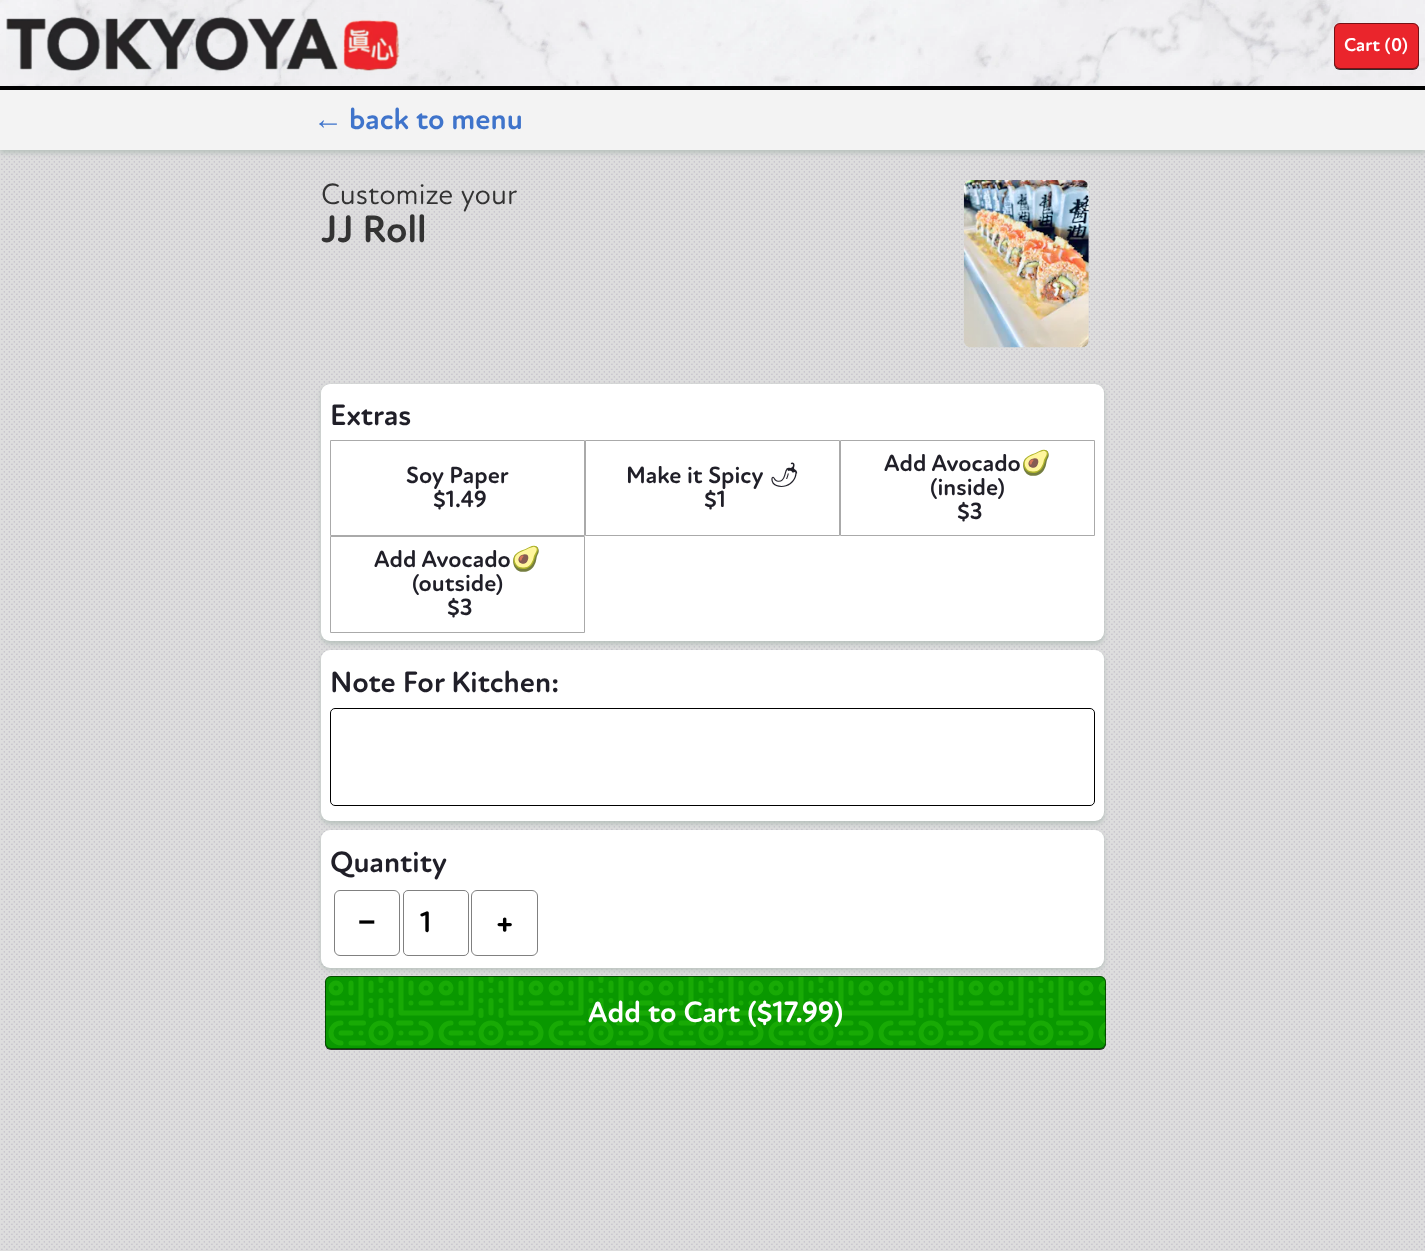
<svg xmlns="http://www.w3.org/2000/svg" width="1425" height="1251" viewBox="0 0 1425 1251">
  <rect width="100%" height="100%" fill="#ddd"/>
  <image x="1" y="151" width="1424" height="1099" href="img/3.png"/>
  <path d="M0 93h1425v60H0z" fill="#b7c1bc" filter="blur(2.5px)"/>
  <image x="0" y="0" width="1425" height="86" href="img/1.png"/>
  <path d="M0 86h1425v4H0z" fill="#000"/>
  <image x="6" y="10" width="394" height="65" href="img/2.png"/>
  <rect x="1334" y="24" width="85" height="46" rx="6" fill="#000000cc" filter="blur(0.5px)"/>
  <rect x="1334" y="23" width="85" height="46" rx="6" fill="#ea252c"/>
  <rect x="1334.5" y="23.5" width="84" height="45" rx="5.5" fill="none" stroke="#00000080"/>
  <path d="M0 90h1425v60H0z" fill="#f3f3f3"/>
  <image x="963" y="180" width="126" height="168" href="img/4.png"/>
  <rect x="321" y="386" width="783" height="258" rx="9" fill="#b7c1bc" filter="blur(2.5px)"/>
  <rect x="321" y="384" width="783" height="257" rx="9" fill="#fff"/>
  <path d="M330.5 440.5h254v95H330.5z" fill="none" stroke="#aaa"/>
  <path d="M585.5 440.5h254v95H585.5z" fill="none" stroke="#aaa"/>
  <path d="M840.5 440.5h254v95H840.5z" fill="none" stroke="#aaa"/>
  <path d="M330.5 536.5h254v96H330.5z" fill="none" stroke="#aaa"/>
  <rect x="321" y="653" width="783" height="171" rx="9" fill="#b7c1bc" filter="blur(2.5px)"/>
  <rect x="321" y="650" width="783" height="171" rx="9" fill="#fff"/>
  <rect x="330.5" y="708.5" width="764" height="97" rx="4.5" fill="none" stroke="#000"/>
  <rect x="321" y="833" width="783" height="137" rx="9" fill="#b7c1bc" filter="blur(2.5px)"/>
  <rect x="321" y="830" width="783" height="138" rx="9" fill="#fff"/>
  <rect x="334.5" y="890.5" width="65" height="65" rx="5.5" fill="none" stroke="#808080"/>
  <rect x="403.5" y="890.5" width="65" height="65" rx="4.5" fill="none" stroke="#808080"/>
  <rect x="471.5" y="890.5" width="66" height="65" rx="5.5" fill="none" stroke="#808080"/>
  <rect x="325" y="978" width="781" height="72" rx="6" fill="#000000cc" filter="blur(0.5px)"/>
  <rect x="325" y="976" width="781" height="73" rx="6" fill="#099800"/>
  <image x="325" y="976" width="782" height="73" href="img/5.png"/>
  <rect x="325.5" y="976.5" width="780" height="72" rx="5.5" fill="none" stroke="#00000080"/>
  <g font-family="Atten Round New" font-size="19" font-weight="bold" fill="#fff">
    <text x="1344" y="51">Cart (</text>
    <text x="1391" y="51">0</text>
    <text x="1402" y="51">)</text>
  </g>
  <text x="313" y="129" font-family="Liberation Sans" font-size="30" font-weight="bold" fill="#3f74cb">←</text>
  <text x="349" y="129" font-family="Atten Round New" font-size="30" font-weight="bold" fill="#3f74cb">back to menu</text>
  <text x="321" y="204" font-family="Atten Round New" font-size="30" fill="#333">Customize your</text>
  <text x="321" y="242" font-family="Atten Round New" font-size="39" font-weight="bold" fill="#333">JJ Roll</text>
  <text x="330" y="425" font-family="Atten Round New" font-size="30" font-weight="bold" fill="#201f28">Extras</text>
  <g font-family="Atten Round New" font-size="24" font-weight="bold" fill="#201f28">
    <text x="406" y="483">Soy Paper</text>
    <text x="433" y="507">$1.49</text>
    <text x="626" y="483">Make it Spicy</text>
  </g>
  <text x="769" y="483" font-family="Noto Emoji" font-size="24" font-weight="600" fill="#201f28">🌶</text>
  <g font-family="Atten Round New" font-size="24" font-weight="bold" fill="#201f28">
    <text x="704" y="507">$1</text>
    <text x="884" y="471">Add Avocado</text>
  </g>
  <text x="1021" y="471" font-family="Noto Color Emoji" font-size="24" font-weight="bold" fill="#201f28">🥑</text>
  <g font-family="Atten Round New" font-size="24" font-weight="bold" fill="#201f28">
    <text x="930" y="495">(inside)</text>
    <text x="957" y="519">$3</text>
    <text x="374" y="567">Add Avocado</text>
  </g>
  <text x="511" y="567" font-family="Noto Color Emoji" font-size="24" font-weight="bold" fill="#201f28">🥑</text>
  <g font-family="Atten Round New" font-size="24" font-weight="bold" fill="#201f28">
    <text x="412" y="591">(outside)</text>
    <text x="447" y="615">$3</text>
  </g>
  <g font-family="Atten Round New" font-size="30" font-weight="bold" fill="#201f28">
    <text x="330" y="692">Note For Kitchen:</text>
    <text x="330" y="872">Quantity</text>
  </g>
  <text x="358" y="932" font-family="Liberation Sans" font-size="30" font-weight="bold" fill="#000">−</text>
  <g font-family="Atten Round New" font-size="30" font-weight="bold" fill="#000">
    <text x="420" y="932">1</text>
    <text x="496" y="932">+</text>
  </g>
  <text x="588" y="1022" font-family="Atten Round New" font-size="30" font-weight="bold" fill="#fff">Add to Cart ($17.99)</text>
</svg>
